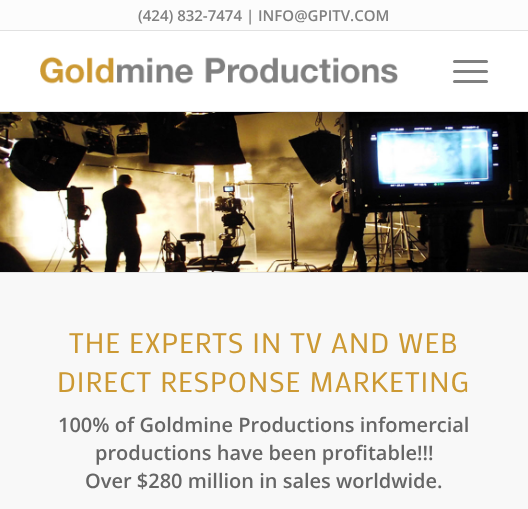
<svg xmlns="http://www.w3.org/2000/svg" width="528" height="509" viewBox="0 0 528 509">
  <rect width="100%" height="100%" fill="#f8f8f8"/>
  <path d="M0 0h528v30H0z" fill="#fcfcfc"/>
  <path d="M0 30h528v1H0z" fill="#e1e1e1"/>
  <path d="M0 31h528v80H0z" fill="#fff"/>
  <path d="M0 111h528v1H0z" fill="#e1e1e1"/>
  <image x="40" y="56" width="358" height="28" href="img/1.png"/>
  <rect x="453" y="70" width="35" height="3" rx="1.5" fill="#808080"/>
  <rect x="453" y="60" width="35" height="3" rx="1.5" fill="#808080"/>
  <rect x="453" y="80" width="35" height="3" rx="1.5" fill="#808080"/>
  <image x="0" y="112" width="528" height="160" href="img/2.png"/>
  <path d="M0 272h528v1H0z" fill="#e1e1e1"/>
  <text x="138" y="21" font-family="Open Sans" font-size="15" font-weight="600" fill="#808080">(424) 832-7474 | INFO@GPITV.COM</text>
  <g font-family="Mako" font-size="28" letter-spacing="1" fill="#c93">
    <text x="69" y="353">THE EXPERTS IN TV AND WEB</text>
    <text x="57" y="392">DIRECT RESPONSE MARKETING</text>
  </g>
  <g font-family="Open Sans" font-size="20" font-weight="600" fill="#666">
    <text x="58" y="432">100% of Goldmine Productions infomercial</text>
    <text x="95" y="460">productions have been profitable!!!</text>
    <text x="85" y="488">Over $280 million in sales worldwide.</text>
  </g>
</svg>
